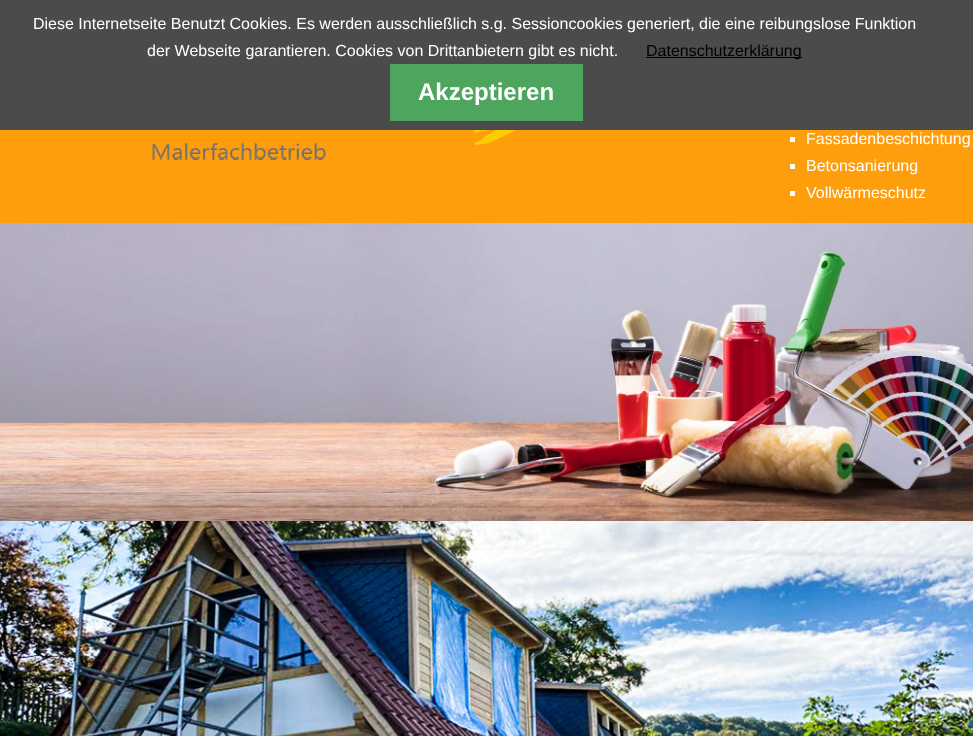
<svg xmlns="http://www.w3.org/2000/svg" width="973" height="736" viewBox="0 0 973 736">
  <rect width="100%" height="100%" fill="#ff9e0d"/>
  <path d="M0 0h973v130H0z" fill="#4b4b4b"/>
  <path d="M646 57h156v1H646z" fill="#000"/>
  <path d="M390 64h193v57H390z" fill="#4ea55e"/>
  <image x="152" y="130" width="363" height="30" href="img/1.png"/>
  <path d="M790 137h5v5H790z" fill="#fff"/>
  <path d="M790 164h5v5H790z" fill="#fff"/>
  <path d="M790 191h5v5H790z" fill="#fff"/>
  <image x="0" y="223" width="973" height="298" href="img/2.png"/>
  <image x="0" y="521" width="973" height="215" href="img/3.png"/>
  <g font-family="Liberation Sans" font-size="16" fill="#fff">
    <text x="33" y="29">Diese Internetseite Benutzt Cookies. Es werden ausschließlich s.g. Sessioncookies generiert, die eine reibungslose Funktion</text>
    <text x="147" y="56">der Webseite garantieren. Cookies von Drittanbietern gibt es nicht.</text>
  </g>
  <text x="646" y="56" font-family="Liberation Sans" font-size="16" fill="#000">Datenschutzerklärung</text>
  <text x="418" y="100" font-family="Liberation Sans" font-size="24" font-weight="bold" fill="#fff">Akzeptieren</text>
  <g font-family="Liberation Sans" font-size="16" fill="#fff">
    <text x="806" y="144">Fassadenbeschichtung</text>
    <text x="806" y="171">Betonsanierung</text>
    <text x="806" y="198">Vollwärmeschutz</text>
  </g>
</svg>
